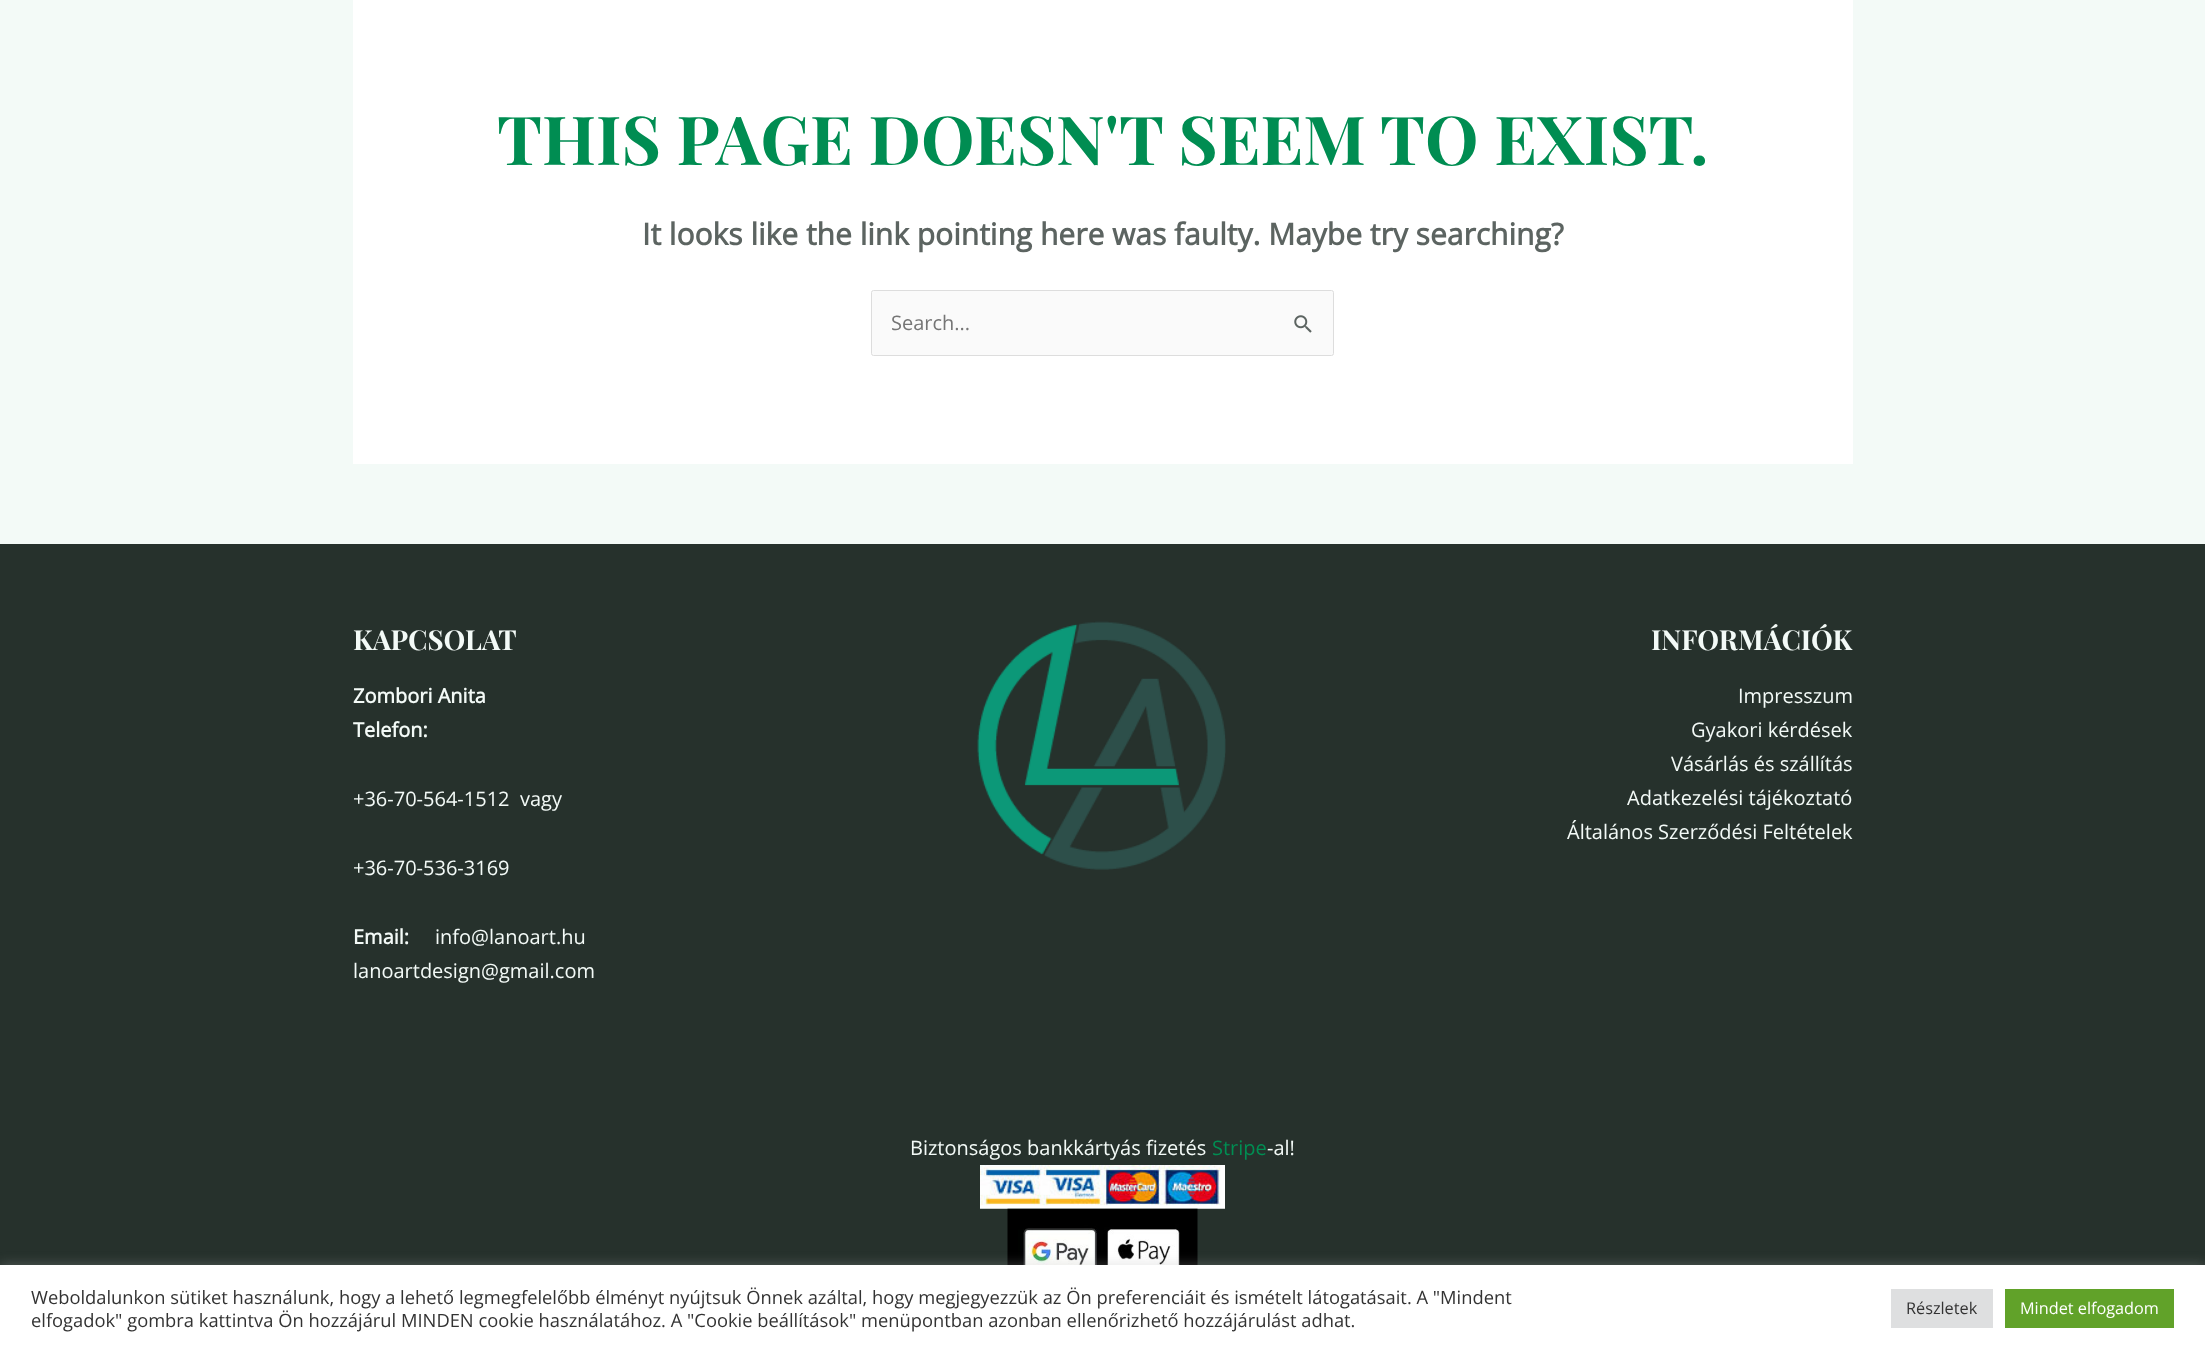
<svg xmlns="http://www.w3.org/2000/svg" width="2205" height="1351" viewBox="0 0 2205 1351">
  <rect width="100%" height="100%" fill="#f3faf7"/>
  <path d="M353 0h1500v464H353z" fill="#fff"/>
  <rect x="871.5" y="290.5" width="462" height="65" rx="2" fill="#fafafa" stroke="#ddd"/>
  <image x="1294" y="315" width="18" height="18" href="img/1.png"/>
  <path d="M0 544h2205v721H0z" fill="#26312c"/>
  <image x="977" y="621" width="249" height="249" href="img/2.png"/>
  <image x="980" y="1165" width="245" height="44" href="img/3.png"/>
  <image x="1007" y="1208" width="191" height="57" href="img/4.png"/>
  <path d="M0 1264h2205v86H0z" fill="#acabab4d" filter="blur(6px)"/>
  <path d="M0 1265h2205v86H0z" fill="#fff"/>
  <path d="M1891 1289h102v39H1891z" fill="#dedfe0"/>
  <path d="M2005 1289h169v39H2005z" fill="#61a229"/>
  <text x="497" y="165" font-family="Playfair Display" font-size="67.5" font-weight="bold" fill="#008d52">THIS PAGE DOESN'T SEEM TO EXIST.</text>
  <text x="642" y="245" font-family="Open Sans" font-size="30" font-weight="bold" fill="#5c6461">It looks like the link pointing here was faulty. Maybe try searching?</text>
  <text x="891" y="330" font-family="Open Sans" font-size="20" fill="#757575">Search...</text>
  <text x="353" y="650" font-family="Playfair Display" font-size="27.5" font-weight="bold" fill="#f3faf7">KAPCSOLAT</text>
  <g font-family="Open Sans" font-size="20" font-weight="bold" fill="#f3faf7">
    <text x="353" y="703">Zombori Anita</text>
    <text x="353" y="737">Telefon:</text>
  </g>
  <g font-family="Open Sans" font-size="20" fill="#f3faf7">
    <text x="353" y="806" xml:space="preserve">+36-70-564-1512  vagy</text>
    <text x="353" y="875">+36-70-536-3169</text>
  </g>
  <text x="353" y="944" font-family="Open Sans" font-size="20" font-weight="bold" fill="#f3faf7">Email:</text>
  <g font-family="Open Sans" font-size="20" fill="#f3faf7">
    <text x="435" y="944">info@lanoart.hu</text>
    <text x="353" y="978">lanoartdesign@gmail.com</text>
  </g>
  <text x="1651" y="650" font-family="Playfair Display" font-size="27.5" font-weight="bold" fill="#f3faf7">INFORMÁCIÓK</text>
  <g font-family="Open Sans" font-size="20" fill="#f3faf7">
    <text x="1738" y="703">Impresszum</text>
    <text x="1691" y="737">Gyakori kérdések</text>
    <text x="1671" y="771">Vásárlás és szállítás</text>
    <text x="1627" y="805">Adatkezelési tájékoztató</text>
    <text x="1567" y="839">Általános Szerződési Feltételek</text>
    <text x="910" y="1155">Biztonságos bankkártyás fizetés</text>
  </g>
  <text x="1212" y="1155" font-family="Open Sans" font-size="20" fill="#008d52">Stripe</text>
  <text x="1267" y="1155" font-family="Open Sans" font-size="20" fill="#f3faf7">-al!</text>
  <g font-family="Open Sans" font-size="18.33" fill="#333">
    <text x="31" y="1304">Weboldalunkon sütiket használunk, hogy a lehető legmegfelelőbb élményt nyújtsuk Önnek azáltal, hogy megjegyezzük az Ön preferenciáit és ismételt látogatásait. A "Mindent</text>
    <text x="31" y="1327">elfogadok" gombra kattintva Ön hozzájárul MINDEN cookie használatához. A "Cookie beállítások" menüpontban azonban ellenőrizhető hozzájárulást adhat.</text>
  </g>
  <text x="1906" y="1314" font-family="Open Sans" font-size="16.25" fill="#333">Részletek</text>
  <text x="2020" y="1314" font-family="Open Sans" font-size="16.25" fill="#fff">Mindet elfogadom</text>
</svg>
